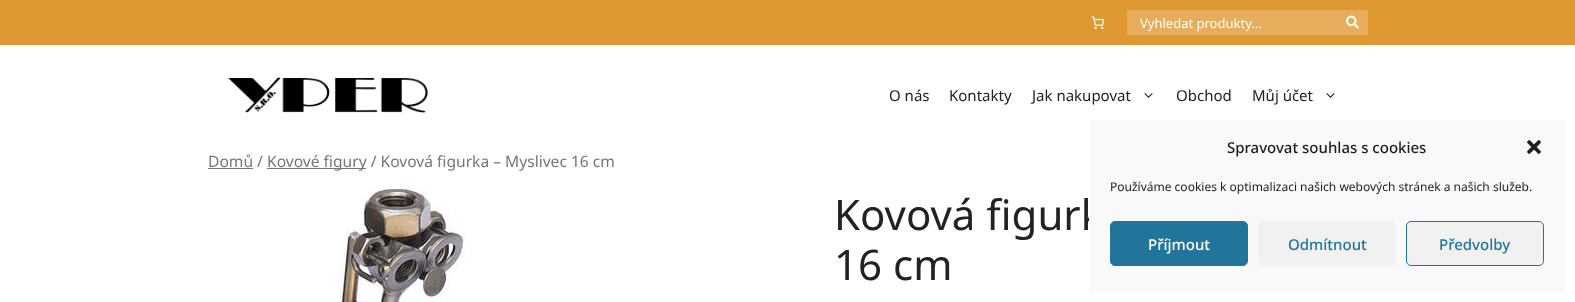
<svg xmlns="http://www.w3.org/2000/svg" width="1575" height="302" viewBox="0 0 1575 302">
  <rect width="100%" height="100%" fill="#fff"/>
  <path d="M0 0h1575v45H0z" fill="#de9933"/>
  <image x="1091" y="16" width="13" height="14" href="img/1.png"/>
  <path d="M1127 10h241v25H1127z" fill="#e5ad5c"/>
  <image x="1346" y="15" width="13" height="14" href="img/2.png"/>
  <image x="228" y="77" width="200" height="36" href="img/3.png"/>
  <image x="1144" y="93" width="9" height="5" href="img/4.png"/>
  <image x="1326" y="93" width="9" height="5" href="img/4.png"/>
  <path d="M208 168h45v1H208z" fill="#767676"/>
  <path d="M267 168h99v1H267z" fill="#767676"/>
  <image x="339" y="189" width="128" height="113" href="img/5.png"/>
  <text x="1140" y="28" font-family="Noto Sans" font-size="13" fill="#fff">Vyhledat produkty...</text>
  <g font-family="Noto Sans" font-size="15" fill="#222">
    <text x="889" y="101">O nás</text>
    <text x="949" y="101">Kontakty</text>
    <text x="1032" y="101">Jak nakupovat</text>
    <text x="1176" y="101">Obchod</text>
    <text x="1252" y="101">Můj účet</text>
  </g>
  <g font-family="Noto Sans" font-size="15.6" fill="#767676">
    <text x="208" y="167">Domů /</text>
    <text x="267" y="167">Kovové figury / Kovová figurka – Myslivec 16 cm</text>
  </g>
  <g font-family="Noto Sans" font-size="42" fill="#222">
    <text x="834" y="230">Kovová figurk</text>
    <text x="834" y="280">16 cm</text>
  </g>
  <path d="M1089 120h476v172H1089z" fill="#f9f9f9"/>
  <text x="1227" y="153" font-family="Noto Sans" font-size="15" font-weight="500" fill="#191e23">Spravovat souhlas s cookies</text>
  <image x="1527" y="140" width="14" height="14" href="img/6.png"/>
  <text x="1110" y="191" font-family="Noto Sans" font-size="12" fill="#191e23">Používáme cookies k optimalizaci našich webových stránek a našich služeb.</text>
  <rect x="1110.5" y="221.5" width="137" height="44" rx="4.5" fill="#21759b" stroke="#21759b"/>
  <text x="1148" y="250" font-family="Noto Sans" font-size="15" font-weight="500" fill="#fff">Příjmout</text>
  <rect x="1258" y="221" width="138" height="45" rx="5" fill="#f1f1f1"/>
  <text x="1288" y="250" font-family="Noto Sans" font-size="15" font-weight="500" fill="#21759b">Odmítnout</text>
  <rect x="1406.5" y="221.5" width="137" height="44" rx="4.5" fill="#f1f1f1" stroke="#21759b"/>
  <text x="1439" y="250" font-family="Noto Sans" font-size="15" font-weight="500" fill="#21759b">Předvolby</text>
</svg>
